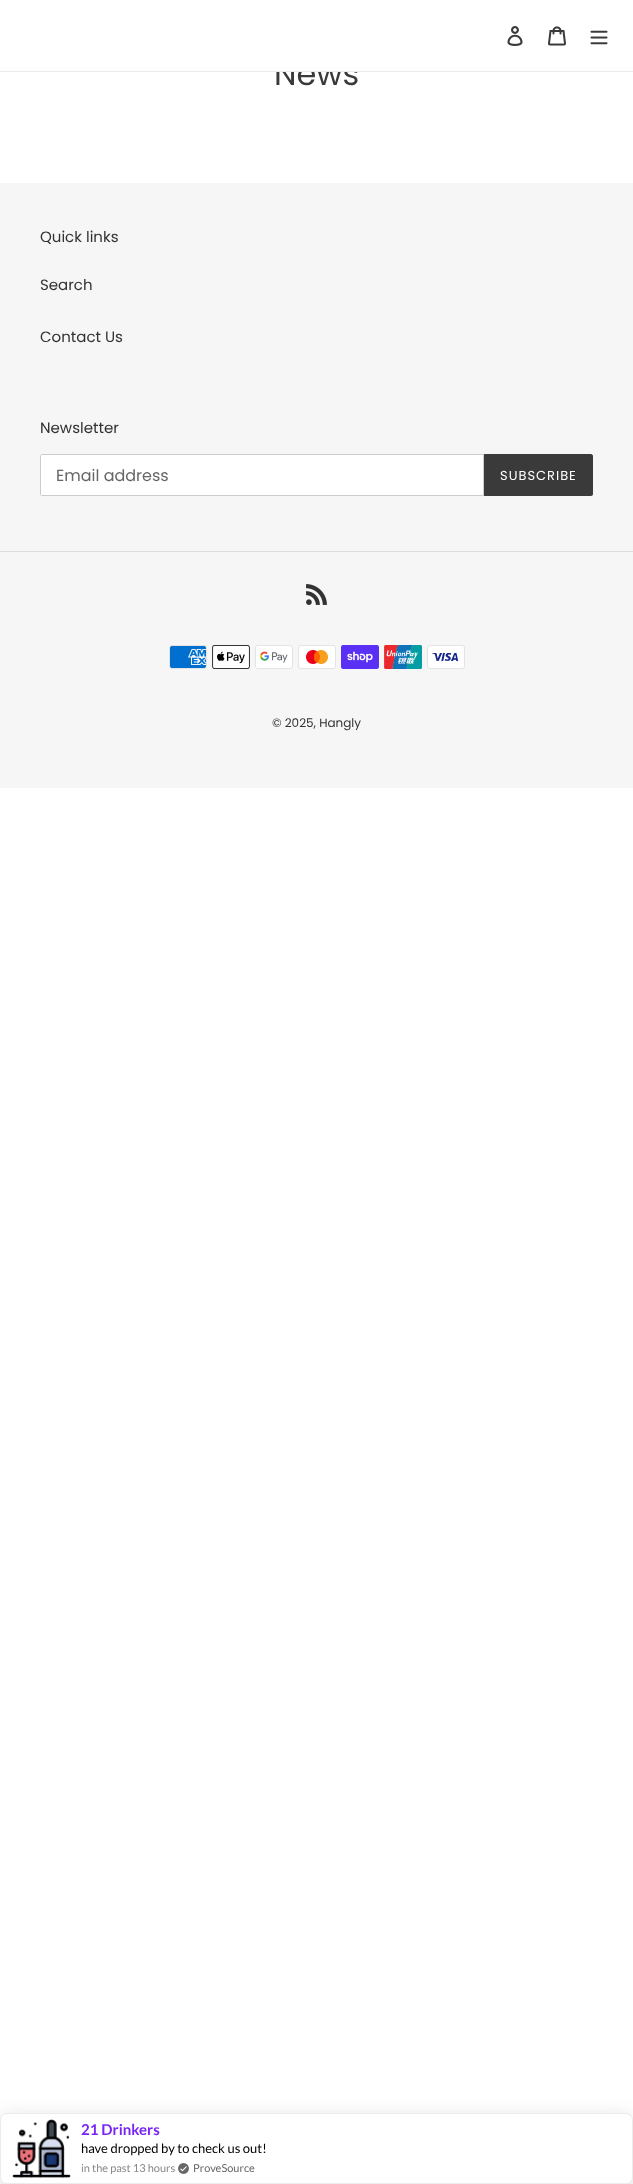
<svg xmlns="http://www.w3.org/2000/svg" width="633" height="2184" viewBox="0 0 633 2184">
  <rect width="100%" height="100%" fill="#fff"/>
  <image x="507" y="26" width="16" height="20" href="img/1.png"/>
  <image x="548" y="26" width="18" height="20" href="img/2.png"/>
  <image x="590" y="30" width="18" height="15" href="img/3.png"/>
  <path d="M0 183h633v605H0z" fill="#f6f6f6"/>
  <path d="M42 454.5H483.5V495.5H42C41 495.5 40.5 495 40.5 494V456C40.5 455 41 454.5 42 454.5Z" fill="#fff" stroke="#ccc"/>
  <path d="M484 454H591C592 454 593 455 593 456V494C593 495 592 496 591 496H484Z" fill="#3a3a3a"/>
  <path d="M0 551h633v1H0z" fill="#ddd"/>
  <image x="306" y="584" width="21" height="21" href="img/4.png"/>
  <image x="169" y="645" width="38" height="24" href="img/5.png"/>
  <image x="212" y="645" width="38" height="24" href="img/6.png"/>
  <image x="255" y="645" width="38" height="24" href="img/7.png"/>
  <image x="298" y="645" width="38" height="24" href="img/8.png"/>
  <image x="341" y="645" width="38" height="24" href="img/9.png"/>
  <image x="384" y="645" width="38" height="24" href="img/10.png"/>
  <image x="427" y="645" width="38" height="24" href="img/11.png"/>
  <rect y="2118" width="633" height="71" rx="7" fill="#00000026" filter="blur(10px)"/>
  <rect x="0.5" y="2113.5" width="632" height="70" rx="6.5" fill="#fff" stroke="#ececec"/>
  <image x="12" y="2119" width="59" height="59" href="img/12.png"/>
  <image x="178" y="2163" width="11" height="11" href="img/13.png"/>
  <text x="274" y="85" font-family="Poppins" font-size="32" fill="#3a3a3a">News</text>
  <path d="M0 71h633v1H0z" fill="#ebebeb"/>
  <path d="M276 62h81v9H276z" fill="#fff"/>
  <g font-family="Poppins" font-size="15" fill="#333232">
    <text x="40" y="242">Quick links</text>
    <text x="40" y="290">Search</text>
    <text x="40" y="342">Contact Us</text>
    <text x="40" y="433">Newsletter</text>
  </g>
  <text x="56" y="481" font-family="Poppins" font-size="16" fill="#666">Email address</text>
  <text x="500" y="480" font-family="Poppins" font-size="13" letter-spacing="1" fill="#fff">SUBSCRIBE</text>
  <text x="272" y="727" font-family="Poppins" font-size="12" fill="#333232">© 2025, Hangly</text>
  <text x="81" y="2135" font-family="Lato" font-size="15" font-weight="bold" fill="#7825f3">21 Drinkers</text>
  <text x="81" y="2153" font-family="Lato" font-size="13" fill="#000">have dropped by to check us out!</text>
  <text x="81" y="2172" font-family="Lato" font-size="11" fill="#888">in the past 13 hours</text>
  <text x="193" y="2172" font-family="Lato" font-size="11" fill="#666">ProveSource</text>
</svg>
